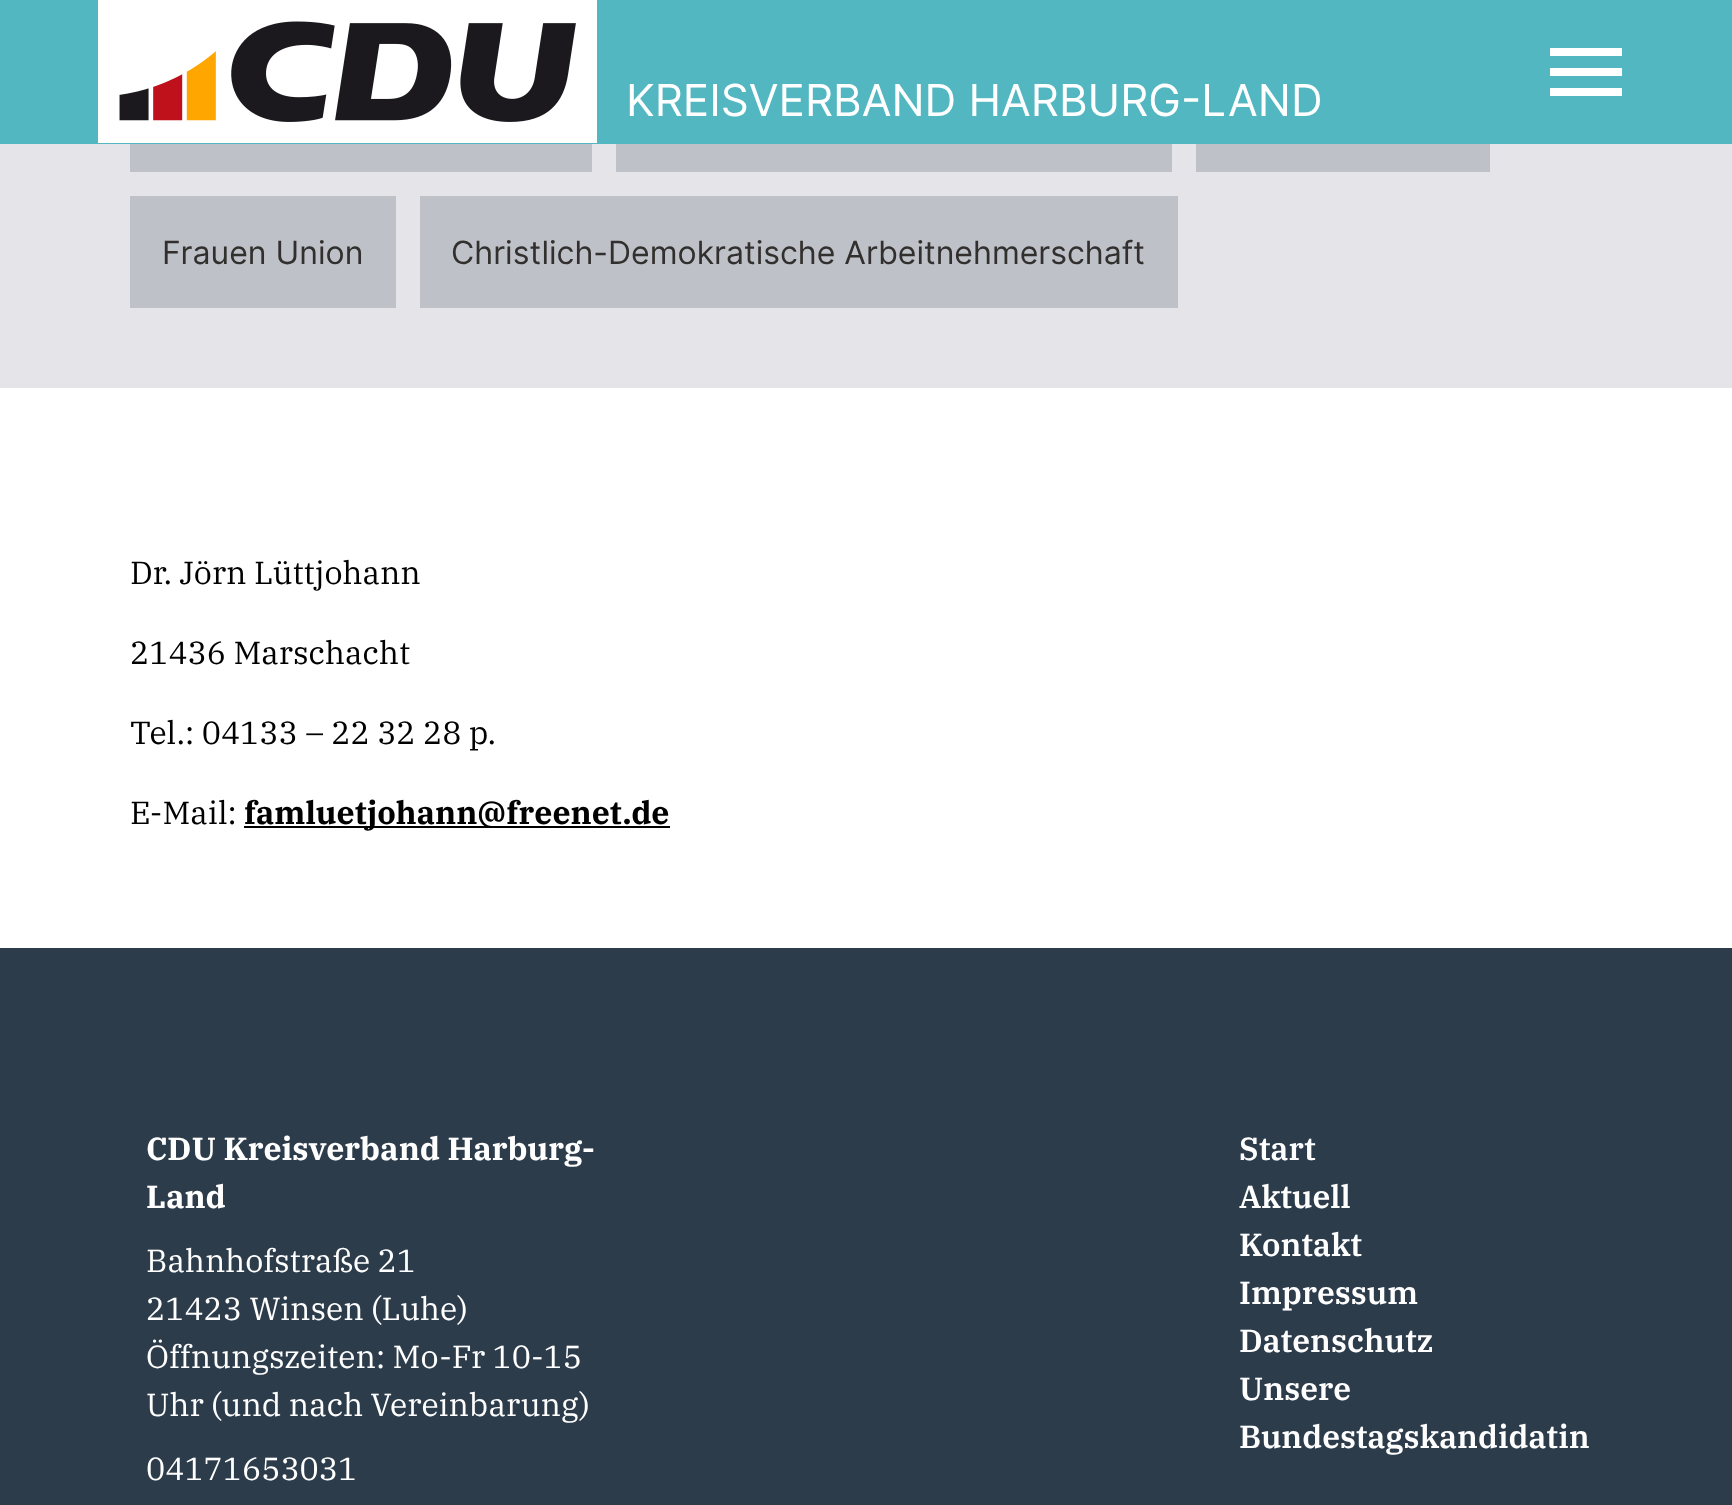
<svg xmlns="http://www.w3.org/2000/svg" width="1732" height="1505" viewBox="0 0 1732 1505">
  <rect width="100%" height="100%" fill="#fff"/>
  <path d="M0 0h1732v144H0z" fill="#52b7c1"/>
  <path d="M1622 96H1550V88H1622ZM1622 76H1550V68H1622ZM1622 56H1550V48H1622Z" fill="#fff"/>
  <image x="98" y="0" width="499" height="143" href="img/1.png"/>
  <path d="M0 144h1732v244H0z" fill="#e5e5e9"/>
  <path d="M130 144h462v28H130z" fill="#bfc1c8"/>
  <path d="M616 144h556v28H616z" fill="#bfc1c8"/>
  <path d="M1196 144h294v28H1196z" fill="#bfc1c8"/>
  <path d="M130 196h266v112H130z" fill="#bfc1c8"/>
  <path d="M420 196h758v112H420z" fill="#bfc1c8"/>
  <path d="M244 826h426v2H244z" fill="#000"/>
  <path d="M0 948h1732v557H0z" fill="#2d3c4b"/>
  <text x="626" y="116" font-family="Inter" font-size="44" fill="#fff">KREISVERBAND HARBURG-LAND</text>
  <g font-family="Inter" font-size="32" fill="#32302e">
    <text x="162" y="264">Frauen Union</text>
    <text x="451" y="264">Christlich-Demokratische Arbeitnehmerschaft</text>
  </g>
  <g font-family="IBM Plex Serif" font-size="32" fill="#000">
    <text x="130" y="584">Dr. Jörn Lüttjohann</text>
    <text x="130" y="664">21436 Marschacht</text>
    <text x="130" y="744">Tel.: 04133 – 22 32 28 p.</text>
    <text x="130" y="824">E-Mail:</text>
  </g>
  <text x="244" y="824" font-family="IBM Plex Serif" font-size="32" font-weight="bold" fill="#000">famluetjohann@freenet.de</text>
  <g font-family="IBM Plex Serif" font-size="32" font-weight="bold" fill="#fff">
    <text x="146" y="1160">CDU Kreisverband Harburg-</text>
    <text x="146" y="1208">Land</text>
  </g>
  <g font-family="IBM Plex Serif" font-size="32" fill="#fff">
    <text x="146" y="1272">Bahnhofstraße 21</text>
    <text x="146" y="1320">21423 Winsen (Luhe)</text>
    <text x="146" y="1368">Öffnungszeiten: Mo-Fr 10-15</text>
    <text x="146" y="1416">Uhr (und nach Vereinbarung)</text>
    <text x="146" y="1480">04171653031</text>
  </g>
  <g font-family="IBM Plex Serif" font-size="32" font-weight="600" fill="#fff">
    <text x="1239" y="1160">Start</text>
    <text x="1239" y="1208">Aktuell</text>
    <text x="1239" y="1256">Kontakt</text>
    <text x="1239" y="1304">Impressum</text>
    <text x="1239" y="1352">Datenschutz</text>
    <text x="1239" y="1400">Unsere</text>
    <text x="1239" y="1448">Bundestagskandidatin</text>
  </g>
</svg>
